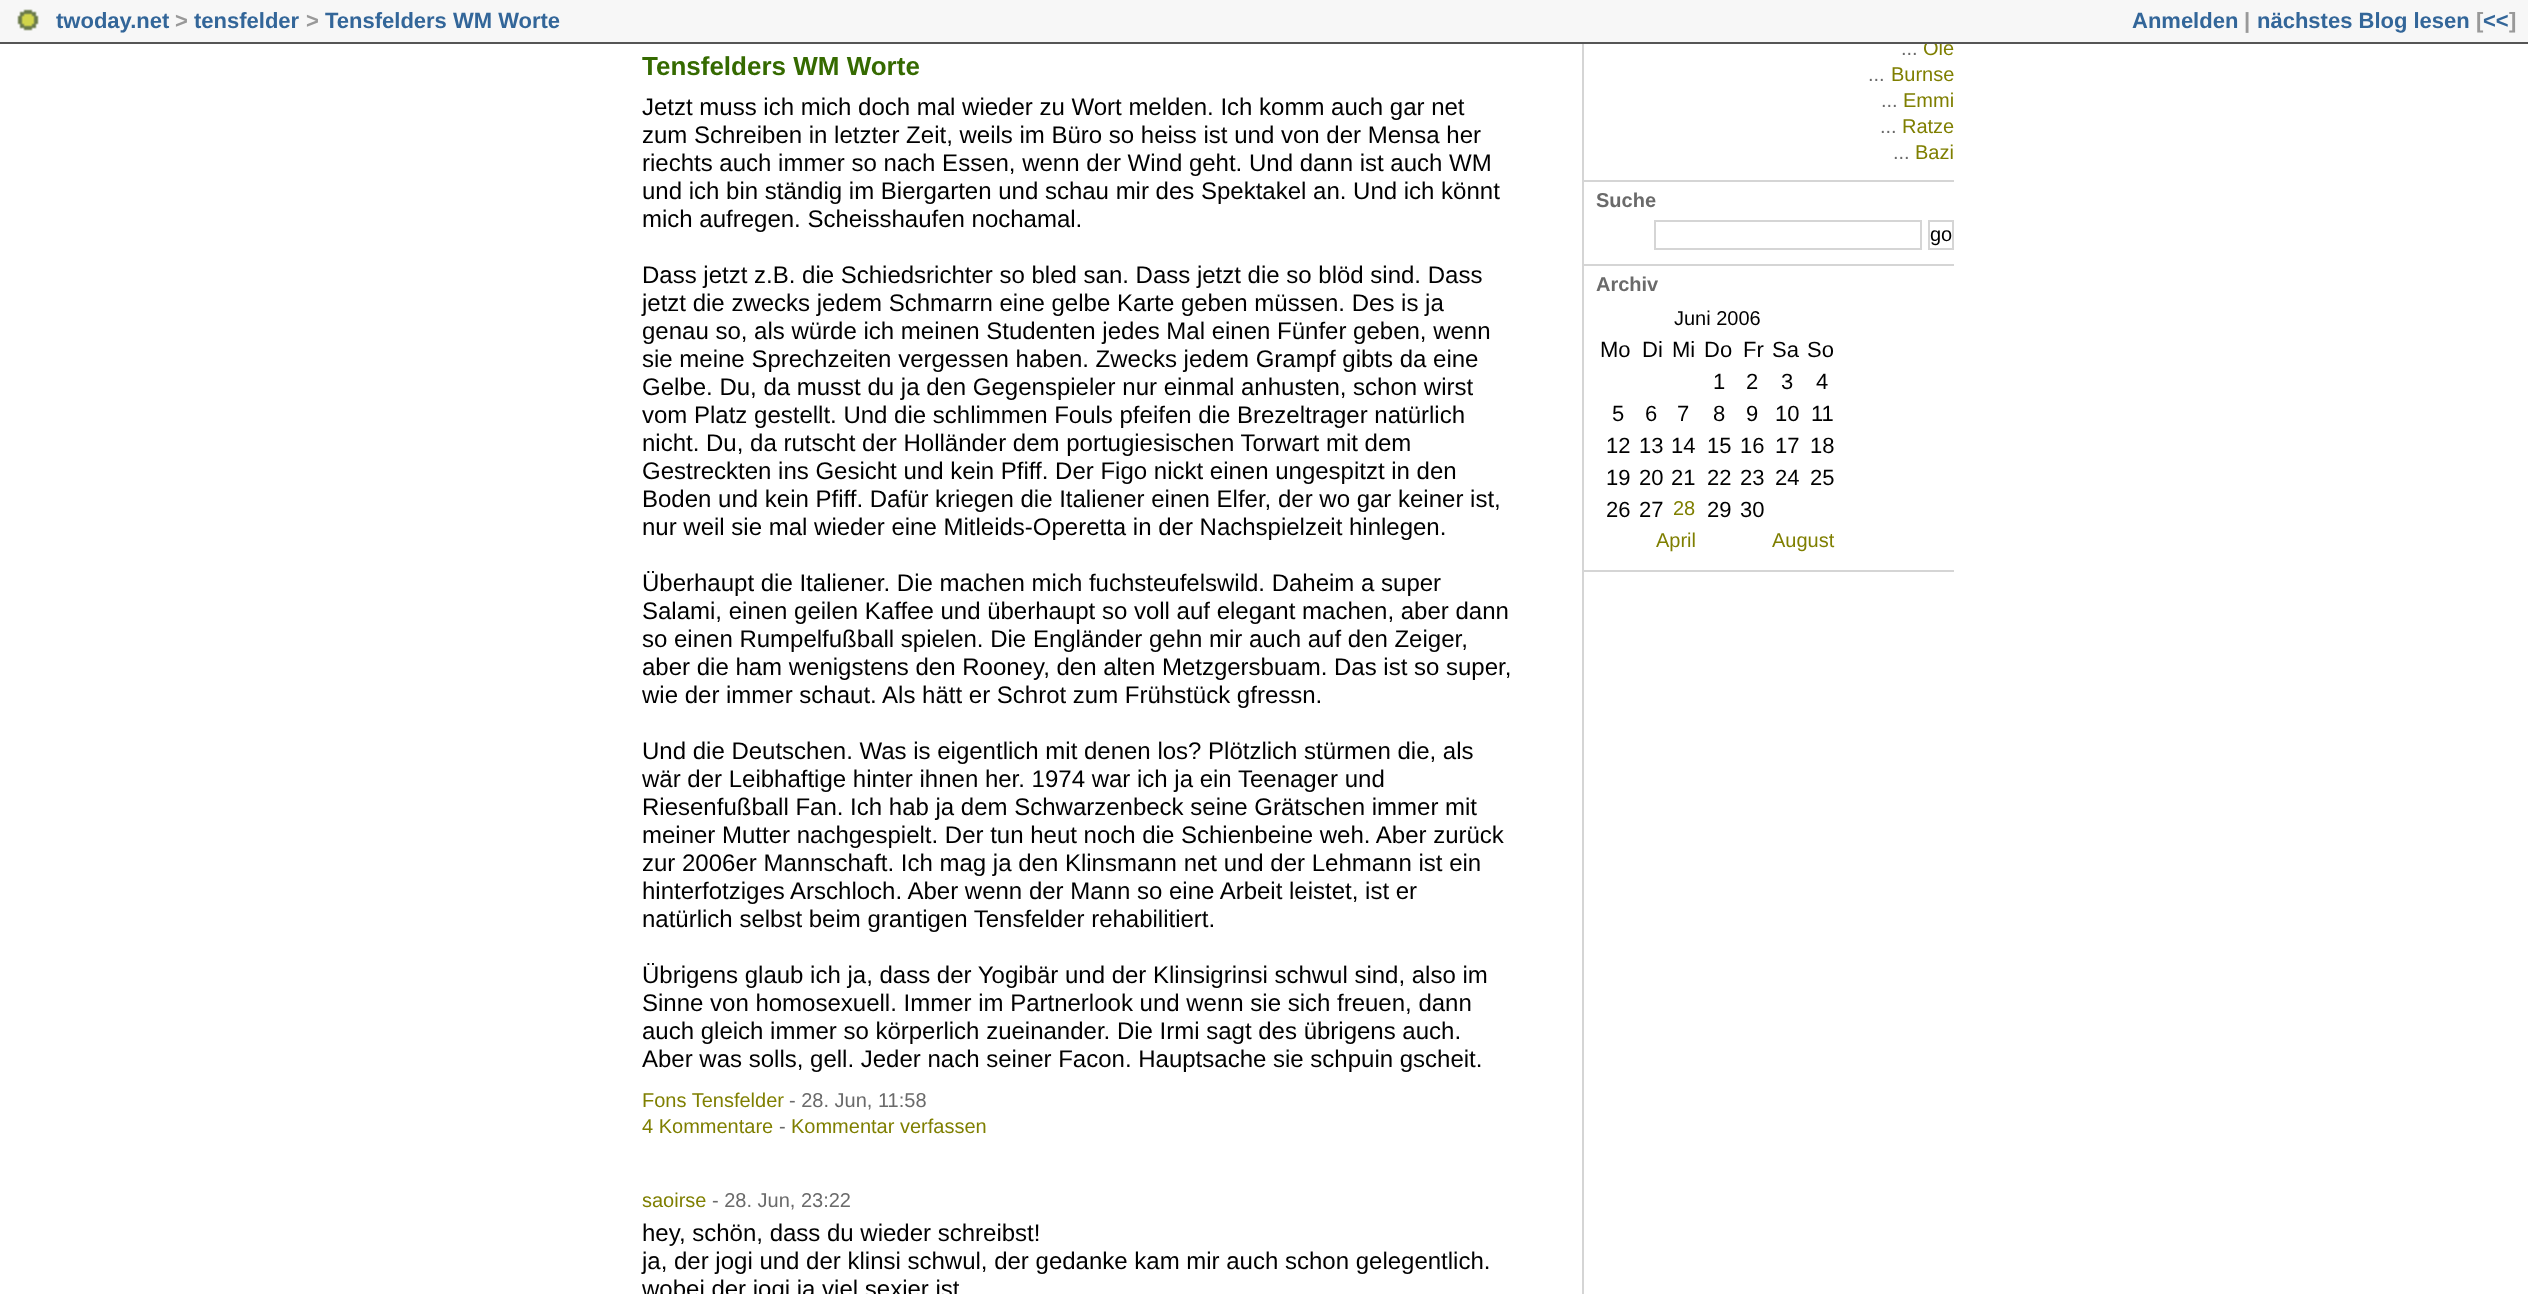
<svg xmlns="http://www.w3.org/2000/svg" width="2528" height="1294" viewBox="0 0 2528 1294">
  <rect width="100%" height="100%" fill="#fff"/>
  <path d="M1582 44h2v1250H1582z" fill="#d5d5d5"/>
  <path d="M1584 180h370v2H1584z" fill="#d5d5d5"/>
  <path d="M1584 264h370v2H1584z" fill="#d5d5d5"/>
  <path d="M1655 221h266v28H1655z" fill="none" stroke="#d5d5d5" stroke-width="2"/>
  <path d="M1929 221h24v28H1929z" fill="none" stroke="#d5d5d5" stroke-width="2"/>
  <path d="M1584 570h370v2H1584z" fill="#d5d5d5"/>
  <text x="642" y="75" font-family="Liberation Sans" font-size="26" font-weight="bold" fill="#356a00">Tensfelders WM Worte</text>
  <g font-family="Liberation Sans" font-size="24" fill="#000">
    <text x="642" y="115">Jetzt muss ich mich doch mal wieder zu Wort melden. Ich komm auch gar net</text>
    <text x="642" y="143">zum Schreiben in letzter Zeit, weils im Büro so heiss ist und von der Mensa her</text>
    <text x="642" y="171">riechts auch immer so nach Essen, wenn der Wind geht. Und dann ist auch WM</text>
    <text x="642" y="199">und ich bin ständig im Biergarten und schau mir des Spektakel an. Und ich könnt</text>
    <text x="642" y="227">mich aufregen. Scheisshaufen nochamal.</text>
    <text x="642" y="283">Dass jetzt z.B. die Schiedsrichter so bled san. Dass jetzt die so blöd sind. Dass</text>
    <text x="642" y="311">jetzt die zwecks jedem Schmarrn eine gelbe Karte geben müssen. Des is ja</text>
    <text x="642" y="339">genau so, als würde ich meinen Studenten jedes Mal einen Fünfer geben, wenn</text>
    <text x="642" y="367">sie meine Sprechzeiten vergessen haben. Zwecks jedem Grampf gibts da eine</text>
    <text x="642" y="395">Gelbe. Du, da musst du ja den Gegenspieler nur einmal anhusten, schon wirst</text>
    <text x="642" y="423">vom Platz gestellt. Und die schlimmen Fouls pfeifen die Brezeltrager natürlich</text>
    <text x="642" y="451">nicht. Du, da rutscht der Holländer dem portugiesischen Torwart mit dem</text>
    <text x="642" y="479">Gestreckten ins Gesicht und kein Pfiff. Der Figo nickt einen ungespitzt in den</text>
    <text x="642" y="507">Boden und kein Pfiff. Dafür kriegen die Italiener einen Elfer, der wo gar keiner ist,</text>
    <text x="642" y="535">nur weil sie mal wieder eine Mitleids-Operetta in der Nachspielzeit hinlegen.</text>
    <text x="642" y="591">Überhaupt die Italiener. Die machen mich fuchsteufelswild. Daheim a super</text>
    <text x="642" y="619">Salami, einen geilen Kaffee und überhaupt so voll auf elegant machen, aber dann</text>
    <text x="642" y="647">so einen Rumpelfußball spielen. Die Engländer gehn mir auch auf den Zeiger,</text>
    <text x="642" y="675">aber die ham wenigstens den Rooney, den alten Metzgersbuam. Das ist so super,</text>
    <text x="642" y="703">wie der immer schaut. Als hätt er Schrot zum Frühstück gfressn.</text>
    <text x="642" y="759">Und die Deutschen. Was is eigentlich mit denen los? Plötzlich stürmen die, als</text>
    <text x="642" y="787">wär der Leibhaftige hinter ihnen her. 1974 war ich ja ein Teenager und</text>
    <text x="642" y="815">Riesenfußball Fan. Ich hab ja dem Schwarzenbeck seine Grätschen immer mit</text>
    <text x="642" y="843">meiner Mutter nachgespielt. Der tun heut noch die Schienbeine weh. Aber zurück</text>
    <text x="642" y="871">zur 2006er Mannschaft. Ich mag ja den Klinsmann net und der Lehmann ist ein</text>
    <text x="642" y="899">hinterfotziges Arschloch. Aber wenn der Mann so eine Arbeit leistet, ist er</text>
    <text x="642" y="927">natürlich selbst beim grantigen Tensfelder rehabilitiert.</text>
    <text x="642" y="983">Übrigens glaub ich ja, dass der Yogibär und der Klinsigrinsi schwul sind, also im</text>
    <text x="642" y="1011">Sinne von homosexuell. Immer im Partnerlook und wenn sie sich freuen, dann</text>
    <text x="642" y="1039">auch gleich immer so körperlich zueinander. Die Irmi sagt des übrigens auch.</text>
    <text x="642" y="1067">Aber was solls, gell. Jeder nach seiner Facon. Hauptsache sie schpuin gscheit.</text>
  </g>
  <text x="642" y="1107" font-family="Liberation Sans" font-size="20" fill="#7f7f00">Fons Tensfelder</text>
  <text x="789" y="1107" font-family="Liberation Sans" font-size="20" fill="#6a6a6a">- 28. Jun, 11:58</text>
  <text x="642" y="1133" font-family="Liberation Sans" font-size="20" fill="#7f7f00">4 Kommentare</text>
  <text x="779" y="1133" font-family="Liberation Sans" font-size="20" fill="#6a6a6a">-</text>
  <g font-family="Liberation Sans" font-size="20" fill="#7f7f00">
    <text x="791" y="1133">Kommentar verfassen</text>
    <text x="642" y="1207">saoirse</text>
  </g>
  <text x="712" y="1207" font-family="Liberation Sans" font-size="20" fill="#6a6a6a">- 28. Jun, 23:22</text>
  <g font-family="Liberation Sans" font-size="24" fill="#000">
    <text x="642" y="1241">hey, schön, dass du wieder schreibst!</text>
    <text x="642" y="1269">ja, der jogi und der klinsi schwul, der gedanke kam mir auch schon gelegentlich.</text>
    <text x="642" y="1297">wobei der jogi ja viel sexier ist</text>
  </g>
  <text x="1901" y="55" font-family="Liberation Sans" font-size="20" fill="#6a6a6a">...</text>
  <text x="1923" y="55" font-family="Liberation Sans" font-size="20" fill="#7f7f00">Ole</text>
  <path d="M0 0h2528v42H0z" fill="#f7f7f7"/>
  <text x="2509" y="28" font-family="Liberation Sans" font-size="22" font-weight="bold" fill="#999">]</text>
  <text x="2483" y="28" font-family="Liberation Sans" font-size="22" font-weight="bold" fill="#369">&lt;&lt;</text>
  <text x="2476" y="28" font-family="Liberation Sans" font-size="22" font-weight="bold" fill="#999">[</text>
  <text x="2257" y="28" font-family="Liberation Sans" font-size="22" font-weight="bold" fill="#369">nächstes Blog lesen</text>
  <text x="2244" y="28" font-family="Liberation Sans" font-size="22" font-weight="bold" fill="#999">|</text>
  <g font-family="Liberation Sans" font-size="22" font-weight="bold" fill="#369">
    <text x="2132" y="28">Anmelden</text>
    <text x="325" y="28">Tensfelders WM Worte</text>
  </g>
  <text x="306" y="28" font-family="Liberation Sans" font-size="22" font-weight="bold" fill="#999">&gt;</text>
  <text x="194" y="28" font-family="Liberation Sans" font-size="22" font-weight="bold" fill="#369">tensfelder</text>
  <text x="175" y="28" font-family="Liberation Sans" font-size="22" font-weight="bold" fill="#999">&gt;</text>
  <text x="56" y="28" font-family="Liberation Sans" font-size="22" font-weight="bold" fill="#369">twoday.net</text>
  <image x="17" y="9" width="22" height="22" href="img/1.png"/>
  <path d="M0 42h2528v2H0z" fill="#555"/>
  <text x="1868" y="81" font-family="Liberation Sans" font-size="20" fill="#6a6a6a">...</text>
  <text x="1891" y="81" font-family="Liberation Sans" font-size="20" fill="#7f7f00">Burnse</text>
  <text x="1881" y="107" font-family="Liberation Sans" font-size="20" fill="#6a6a6a">...</text>
  <text x="1903" y="107" font-family="Liberation Sans" font-size="20" fill="#7f7f00">Emmi</text>
  <text x="1880" y="133" font-family="Liberation Sans" font-size="20" fill="#6a6a6a">...</text>
  <text x="1902" y="133" font-family="Liberation Sans" font-size="20" fill="#7f7f00">Ratze</text>
  <text x="1893" y="159" font-family="Liberation Sans" font-size="20" fill="#6a6a6a">...</text>
  <text x="1915" y="159" font-family="Liberation Sans" font-size="20" fill="#7f7f00">Bazi</text>
  <text x="1596" y="207" font-family="Liberation Sans" font-size="20" font-weight="bold" fill="#6a6a6a">Suche</text>
  <text x="1930" y="241" font-family="Liberation Sans" font-size="20" fill="#000">go</text>
  <text x="1596" y="291" font-family="Liberation Sans" font-size="20" font-weight="bold" fill="#6a6a6a">Archiv</text>
  <text x="1674" y="325" font-family="Liberation Sans" font-size="20" fill="#000">Juni 2006</text>
  <g font-family="Liberation Sans" font-size="22" fill="#000">
    <text x="1600" y="357">Mo</text>
    <text x="1642" y="357">Di</text>
    <text x="1672" y="357">Mi</text>
    <text x="1704" y="357">Do</text>
    <text x="1743" y="357">Fr</text>
    <text x="1772" y="357">Sa</text>
    <text x="1807" y="357">So</text>
    <text x="1713" y="389">1</text>
    <text x="1746" y="389">2</text>
    <text x="1781" y="389">3</text>
    <text x="1816" y="389">4</text>
    <text x="1612" y="421">5</text>
    <text x="1645" y="421">6</text>
    <text x="1677" y="421">7</text>
    <text x="1713" y="421">8</text>
    <text x="1746" y="421">9</text>
    <text x="1775" y="421">10</text>
    <text x="1811" y="421">11</text>
    <text x="1606" y="453">12</text>
    <text x="1639" y="453">13</text>
    <text x="1671" y="453">14</text>
    <text x="1707" y="453">15</text>
    <text x="1740" y="453">16</text>
    <text x="1775" y="453">17</text>
    <text x="1810" y="453">18</text>
    <text x="1606" y="485">19</text>
    <text x="1639" y="485">20</text>
    <text x="1671" y="485">21</text>
    <text x="1707" y="485">22</text>
    <text x="1740" y="485">23</text>
    <text x="1775" y="485">24</text>
    <text x="1810" y="485">25</text>
    <text x="1606" y="517">26</text>
    <text x="1639" y="517">27</text>
  </g>
  <text x="1673" y="515" font-family="Liberation Sans" font-size="20" fill="#7f7f00">28</text>
  <g font-family="Liberation Sans" font-size="22" fill="#000">
    <text x="1707" y="517">29</text>
    <text x="1740" y="517">30</text>
  </g>
  <g font-family="Liberation Sans" font-size="20" fill="#7f7f00">
    <text x="1656" y="547">April</text>
    <text x="1772" y="547">August</text>
  </g>
</svg>
